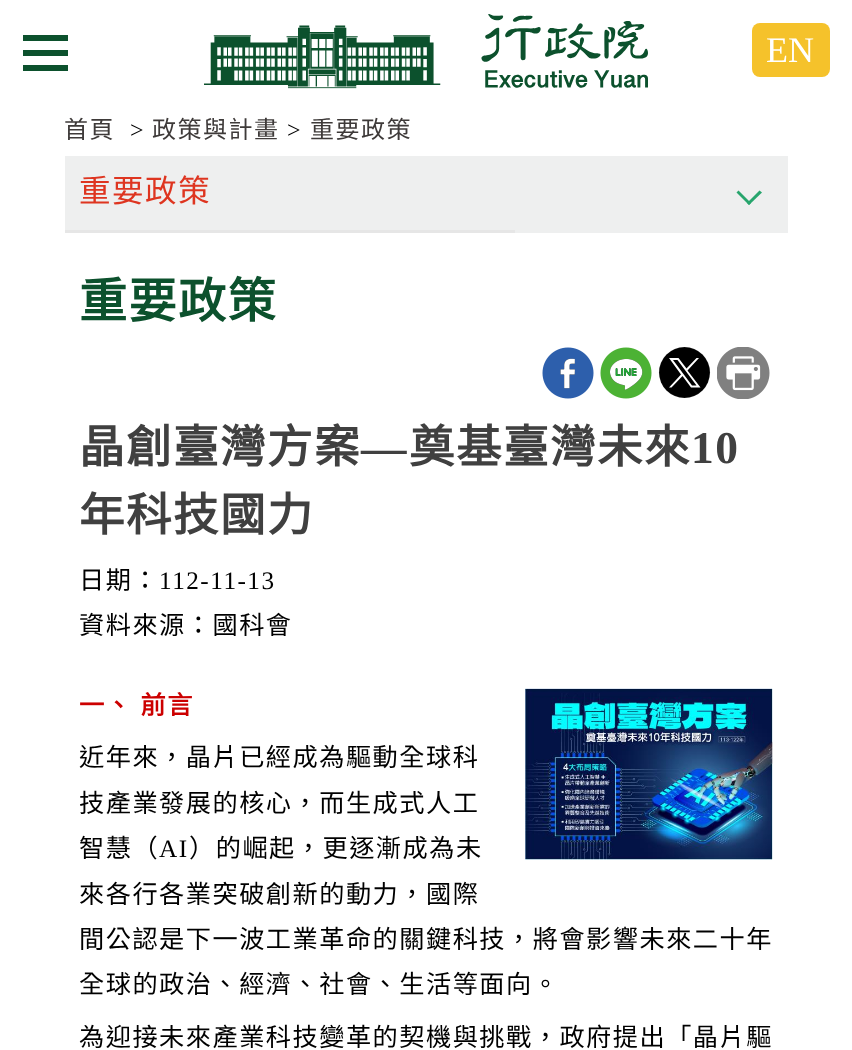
<svg xmlns="http://www.w3.org/2000/svg" width="852" height="1050" viewBox="0 0 852 1050">
  <rect width="100%" height="100%" fill="#fff"/>
  <path d="M23 50h45v6H23z" fill="#0c512d"/>
  <path d="M23 35h45v6H23z" fill="#0c512d"/>
  <path d="M23 65h45v6H23z" fill="#0c512d"/>
  <image x="204" y="14" width="444" height="75" href="img/1.png"/>
  <rect x="752" y="23" width="78" height="54" rx="8" fill="#f5c22b"/>
  <path d="M65 156h723v77H65z" fill="#eeefef"/>
  <path d="M759.5 190.5L762 192.5L749 205L747 203Z" fill="#27a56d"/>
  <path d="M738.5 190.5L751 203L749 205L736.5 192.5Z" fill="#27a56d"/>
  <path d="M65 230h450v3H65z" fill="#e6e6e6"/>
  <image x="542" y="347" width="52" height="52" href="img/2.png"/>
  <image x="600" y="347" width="52" height="52" href="img/3.png"/>
  <circle cx="684.5" cy="372.5" r="25.5" fill="#000" stroke="#fff" stroke-width="0.1"/>
  <path d="M669 358L681 374.5L669 387.5H671.5L682.5 376L691 387.5H700.5L687.5 370.5L699 358H696.5L686.5 368.5L678.5 358ZM673 360H677.5L696.5 385.5H692Z" fill="#fff"/>
  <image x="717" y="347" width="53" height="52" href="img/4.png"/>
  <image x="525" y="688" width="248" height="172" href="img/5.png"/>
  <text x="766" y="62" font-family="Liberation Serif" font-size="36" fill="#fff">EN</text>
  <text x="64" y="138" font-family="Noto Sans CJK TC" font-size="24" letter-spacing="1.5" fill="#3e3a39">首頁</text>
  <text x="130" y="138" font-family="Liberation Serif" font-size="24" letter-spacing="1.5" fill="#000">&gt;</text>
  <text x="152" y="138" font-family="Noto Sans CJK TC" font-size="24" letter-spacing="1.5" fill="#3e3a39">政策與計畫</text>
  <text x="287" y="138" font-family="Liberation Serif" font-size="24" letter-spacing="1.5" fill="#000">&gt;</text>
  <text x="310" y="138" font-family="Noto Sans CJK TC" font-size="24" letter-spacing="1.5" fill="#3e3a39">重要政策</text>
  <text x="79" y="202" font-family="Noto Sans CJK TC" font-size="31.5" letter-spacing="1.5" fill="#de3520">重要政策</text>
  <text x="79" y="318" font-family="Noto Sans CJK TC" font-size="48" font-weight="bold" letter-spacing="1.5" fill="#0c512d">重要政策</text>
  <text x="79" y="463" font-family="Noto Sans CJK TC" font-size="45.5" font-weight="bold" letter-spacing="1.5" fill="#404040">晶創臺灣方案</text>
  <text x="361" y="463" font-family="Liberation Serif" font-size="45.5" font-weight="bold" letter-spacing="1.5" fill="#404040">—</text>
  <text x="409" y="463" font-family="Noto Sans CJK TC" font-size="45.5" font-weight="bold" letter-spacing="1.5" fill="#404040">奠基臺灣未來</text>
  <text x="691" y="463" font-family="Liberation Serif" font-size="45.5" font-weight="bold" letter-spacing="1.5" fill="#404040">10</text>
  <text x="79" y="531" font-family="Noto Sans CJK TC" font-size="45.5" font-weight="bold" letter-spacing="1.5" fill="#404040">年科技國力</text>
  <text x="79" y="589" font-family="Noto Sans CJK TC" font-size="25.2" letter-spacing="1.5" fill="#000">日期：</text>
  <text x="159" y="589" font-family="Liberation Serif" font-size="25.2" letter-spacing="1.5" fill="#000">112-11-13</text>
  <text x="79" y="634" font-family="Noto Sans CJK TC" font-size="25.2" letter-spacing="1.5" fill="#000">資料來源：國科會</text>
  <text x="79" y="714" word-spacing="1" font-family="Noto Sans CJK TC" font-size="25.2" font-weight="bold" letter-spacing="1.5" fill="#c00">一、 前言</text>
  <g font-family="Noto Sans CJK TC" font-size="25.2" letter-spacing="1.5" fill="#000">
    <text x="79" y="766">近年來，晶片已經成為驅動全球科</text>
    <text x="79" y="812">技產業發展的核心，而生成式人工</text>
    <text x="79" y="857">智慧（</text>
  </g>
  <text x="159" y="857" font-family="Liberation Serif" font-size="25.2" letter-spacing="1.5" fill="#000">AI</text>
  <g font-family="Noto Sans CJK TC" font-size="25.2" letter-spacing="1.5" fill="#000">
    <text x="189" y="857">）的崛起，更逐漸成為未</text>
    <text x="79" y="903">來各行各業突破創新的動力，國際</text>
    <text x="79" y="948">間公認是下一波工業革命的關鍵科技，將會影響未來二十年</text>
    <text x="79" y="993">全球的政治、經濟、社會、生活等面向。</text>
    <text x="79" y="1046">為迎接未來產業科技變革的契機與挑戰，政府提出「晶片驅</text>
  </g>
</svg>
